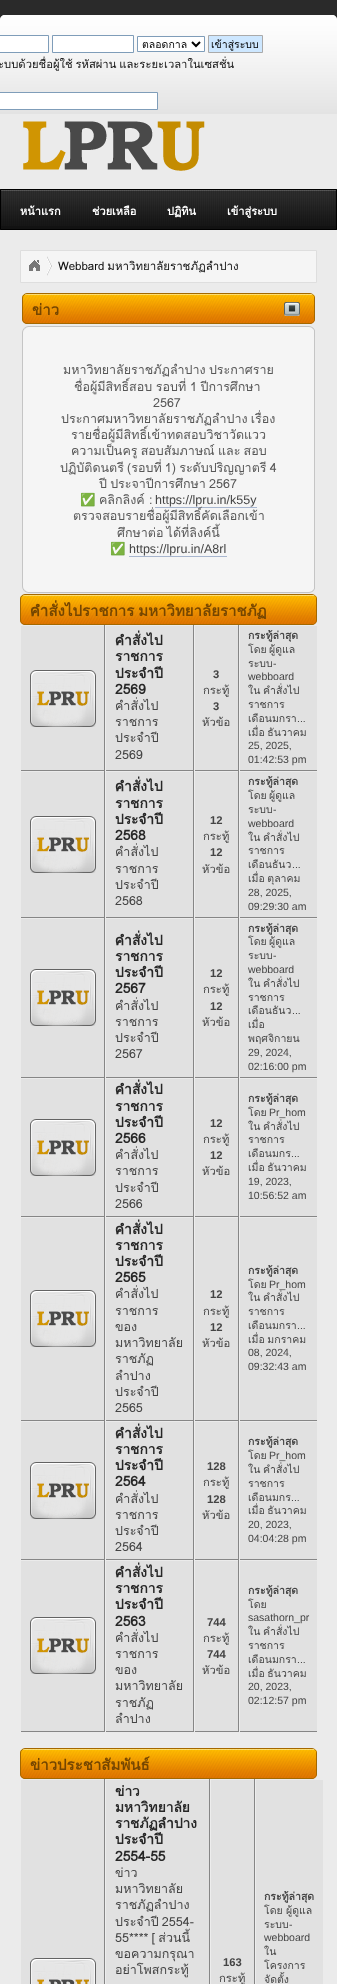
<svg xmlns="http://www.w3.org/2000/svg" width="337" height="1984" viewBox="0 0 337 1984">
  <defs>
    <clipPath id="clip1"><path d="M32 294h282v32H32z"/></clipPath>
    <clipPath id="clip2"><path d="M30 595h286v32H30z"/></clipPath>
    <clipPath id="clip3"><path d="M30 1749h286v32H30z"/></clipPath>
  </defs>
  <rect width="100%" height="100%" fill="#2a2a2a"/>
  <path d="M5 15H332C335 15 337 17 337 20V189H0V20C0 17 2 15 5 15Z" fill="#ebebeb"/>
  <image x="0" y="15" width="337" height="99" href="img/1.png"/>
  <path d="M-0.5 35.5h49v17H-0.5z" fill="#fff" stroke="#7f9db9"/>
  <path d="M52.5 35.5h81v17H52.5z" fill="#fff" stroke="#7f9db9"/>
  <path d="M137.5 36.5h67v15H137.5z" fill="#fff" stroke="#7f9db9"/>
  <path d="M192 42L196 46L200 42" fill="none" stroke="#000" stroke-width="2"/>
  <path d="M208.5 35.5h54v17H208.5z" fill="#cde7ff" stroke="#aaa"/>
  <path d="M-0.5 92.5h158v17H-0.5z" fill="#fff" stroke="#7f9db9"/>
  <image x="23" y="121" width="182" height="50" href="img/2.png"/>
  <path d="M1 226h335v3H1z" fill="#121212"/>
  <image x="1" y="190" width="335" height="36" href="img/3.png"/>
  <path d="M0.5 189.5h336v40H0.5z" fill="none" stroke="#000"/>
  <path d="M0 230h337v1754H0z" fill="#ebebeb"/>
  <path d="M20.5 250.5h296v32H20.5z" fill="#f5f5f5" stroke="#dedede"/>
  <image x="47" y="256" width="5" height="20" href="img/4.png"/>
  <image x="29" y="260" width="11" height="11" href="img/5.png"/>
  <image x="22" y="294" width="293" height="30" href="img/6.png"/>
  <rect x="22.5" y="293.5" width="292" height="30" rx="4.5" fill="none" stroke="#a46800"/>
  <image x="43" y="294" width="271" height="29" href="img/7.png"/>
  <image x="284" y="302" width="16" height="14" href="img/8.png"/>
  <image x="22" y="326" width="287" height="11" href="img/9.png"/>
  <image x="309" y="326" width="6" height="11" href="img/10.png"/>
  <path d="M23 337h291v245H23z" fill="#f5f5f5"/>
  <path d="M314 337h1v245H314z" fill="#c5c5c5"/>
  <path d="M22 337h1v245H22z" fill="#c5c5c5"/>
  <path d="M155 507h102v1H155z" fill="#a8b6cf"/>
  <path d="M129 556h98v1H129z" fill="#a8b6cf"/>
  <image x="22" y="582" width="287" height="11" href="img/11.png"/>
  <image x="309" y="582" width="6" height="11" href="img/12.png"/>
  <image x="20" y="595" width="297" height="30" href="img/13.png"/>
  <rect x="20.5" y="594.5" width="296" height="30" rx="4.5" fill="none" stroke="#a46800"/>
  <image x="41" y="595" width="275" height="29" href="img/14.png"/>
  <path d="M21 626h296v144H21z" fill="#e1e1e1"/>
  <path d="M104 625h1v146H104z" fill="#868686"/>
  <path d="M20 770h85v1H20z" fill="#868686"/>
  <path d="M20 770h1v1H20z" fill="#ededed"/>
  <image x="30" y="670" width="66" height="57" href="img/15.png"/>
  <path d="M193 625h1v146H193z" fill="#868686"/>
  <path d="M105 770h89v1H105z" fill="#868686"/>
  <path d="M105 625h1v146H105z" fill="#ededed"/>
  <path d="M238 625h1v146H238z" fill="#868686"/>
  <path d="M194 770h123v1H194z" fill="#868686"/>
  <path d="M194 625h1v146H194z" fill="#ededed"/>
  <path d="M239 625h1v146H239z" fill="#ededed"/>
  <path d="M21 772h296v145H21z" fill="#e1e1e1"/>
  <path d="M104 771h1v147H104z" fill="#868686"/>
  <path d="M20 917h85v1H20z" fill="#868686"/>
  <path d="M20 917h1v1H20z" fill="#ededed"/>
  <image x="30" y="816" width="66" height="57" href="img/15.png"/>
  <path d="M193 771h1v147H193z" fill="#868686"/>
  <path d="M105 917h89v1H105z" fill="#868686"/>
  <path d="M105 771h1v147H105z" fill="#ededed"/>
  <path d="M238 771h1v147H238z" fill="#868686"/>
  <path d="M194 917h123v1H194z" fill="#868686"/>
  <path d="M194 771h1v147H194z" fill="#ededed"/>
  <path d="M239 771h1v147H239z" fill="#ededed"/>
  <path d="M21 919h296v158H21z" fill="#e1e1e1"/>
  <path d="M104 918h1v160H104z" fill="#868686"/>
  <path d="M20 1077h85v1H20z" fill="#868686"/>
  <path d="M20 1077h1v1H20z" fill="#ededed"/>
  <image x="30" y="969" width="66" height="57" href="img/15.png"/>
  <path d="M193 918h1v160H193z" fill="#868686"/>
  <path d="M105 1077h89v1H105z" fill="#868686"/>
  <path d="M105 918h1v160H105z" fill="#ededed"/>
  <path d="M238 918h1v160H238z" fill="#868686"/>
  <path d="M194 1077h123v1H194z" fill="#868686"/>
  <path d="M194 918h1v160H194z" fill="#ededed"/>
  <path d="M239 918h1v160H239z" fill="#ededed"/>
  <path d="M21 1079h296v137H21z" fill="#e1e1e1"/>
  <path d="M104 1078h1v139H104z" fill="#868686"/>
  <path d="M20 1216h85v1H20z" fill="#868686"/>
  <path d="M20 1216h1v1H20z" fill="#ededed"/>
  <image x="30" y="1119" width="66" height="57" href="img/15.png"/>
  <path d="M193 1078h1v139H193z" fill="#868686"/>
  <path d="M105 1216h89v1H105z" fill="#868686"/>
  <path d="M105 1078h1v139H105z" fill="#ededed"/>
  <path d="M238 1078h1v139H238z" fill="#868686"/>
  <path d="M194 1216h123v1H194z" fill="#868686"/>
  <path d="M194 1078h1v139H194z" fill="#ededed"/>
  <path d="M239 1078h1v139H239z" fill="#ededed"/>
  <path d="M21 1218h296v202H21z" fill="#e1e1e1"/>
  <path d="M104 1217h1v204H104z" fill="#868686"/>
  <path d="M20 1420h85v1H20z" fill="#868686"/>
  <path d="M20 1420h1v1H20z" fill="#ededed"/>
  <image x="30" y="1290" width="66" height="57" href="img/15.png"/>
  <path d="M193 1217h1v204H193z" fill="#868686"/>
  <path d="M105 1420h89v1H105z" fill="#868686"/>
  <path d="M105 1217h1v204H105z" fill="#ededed"/>
  <path d="M238 1217h1v204H238z" fill="#868686"/>
  <path d="M194 1420h123v1H194z" fill="#868686"/>
  <path d="M194 1217h1v204H194z" fill="#ededed"/>
  <path d="M239 1217h1v204H239z" fill="#ededed"/>
  <path d="M21 1422h296v137H21z" fill="#e1e1e1"/>
  <path d="M104 1421h1v139H104z" fill="#868686"/>
  <path d="M20 1559h85v1H20z" fill="#868686"/>
  <path d="M20 1559h1v1H20z" fill="#ededed"/>
  <image x="30" y="1462" width="66" height="57" href="img/15.png"/>
  <path d="M193 1421h1v139H193z" fill="#868686"/>
  <path d="M105 1559h89v1H105z" fill="#868686"/>
  <path d="M105 1421h1v139H105z" fill="#ededed"/>
  <path d="M238 1421h1v139H238z" fill="#868686"/>
  <path d="M194 1559h123v1H194z" fill="#868686"/>
  <path d="M194 1421h1v139H194z" fill="#ededed"/>
  <path d="M239 1421h1v139H239z" fill="#ededed"/>
  <path d="M21 1561h296v170H21z" fill="#e1e1e1"/>
  <path d="M104 1560h1v172H104z" fill="#868686"/>
  <path d="M20 1731h85v1H20z" fill="#868686"/>
  <path d="M20 1731h1v1H20z" fill="#ededed"/>
  <image x="30" y="1617" width="66" height="57" href="img/15.png"/>
  <path d="M193 1560h1v172H193z" fill="#868686"/>
  <path d="M105 1731h89v1H105z" fill="#868686"/>
  <path d="M105 1560h1v172H105z" fill="#ededed"/>
  <path d="M238 1560h1v172H238z" fill="#868686"/>
  <path d="M194 1731h123v1H194z" fill="#868686"/>
  <path d="M194 1560h1v172H194z" fill="#ededed"/>
  <path d="M239 1560h1v172H239z" fill="#ededed"/>
  <image x="20" y="1749" width="297" height="30" href="img/13.png"/>
  <rect x="20.5" y="1748.5" width="296" height="30" rx="4.5" fill="none" stroke="#a46800"/>
  <image x="41" y="1749" width="275" height="29" href="img/14.png"/>
  <path d="M21 1780h302v204H21z" fill="#e1e1e1"/>
  <path d="M104 1779h1v205H104z" fill="#868686"/>
  <image x="30" y="1958" width="66" height="26" href="img/16.png"/>
  <path d="M209 1779h1v205H209z" fill="#868686"/>
  <path d="M105 1779h1v205H105z" fill="#ededed"/>
  <path d="M254 1779h1v205H254z" fill="#868686"/>
  <path d="M210 1779h1v205H210z" fill="#ededed"/>
  <path d="M255 1779h1v205H255z" fill="#ededed"/>
  <g font-family="Loma" font-size="10.5" fill="#000">
    <text x="142" y="48">ตลอดกาล</text>
    <text x="211" y="48">เข้าสู่ระบบ</text>
  </g>
  <text x="-2" y="68" word-spacing="-1" font-family="Loma" font-size="11.25" fill="#101010">ะบบด้วยชื่อผู้ใช้ รหัสผ่าน และระยะเวลาในเซสชั่น</text>
  <g font-family="Loma" font-size="11" font-weight="bold" fill="#fff">
    <text x="20" y="215">หน้าแรก</text>
    <text x="92" y="215">ช่วยเหลือ</text>
    <text x="167" y="215">ปฏิทิน</text>
    <text x="227" y="215">เข้าสู่ระบบ</text>
  </g>
  <text x="58" y="270" word-spacing="-1" font-family="Loma" font-size="11.5" fill="#101010">Webbard มหาวิทยาลัยราชภัฏลำปาง</text>
  <g clip-path="url(#clip1)">
    <text x="32" y="315" font-family="Loma" font-size="15" font-weight="bold" fill="#754600">ข่าว</text>
  </g>
  <g font-family="Loma" font-size="12.5" fill="#575757">
    <text x="63" y="374" word-spacing="-1">มหาวิทยาลัยราชภัฏลำปาง ประกาศราย</text>
    <text x="74" y="391" word-spacing="-0.5">ชื่อผู้มีสิทธิ์สอบ รอบที่ 1 ปีการศึกษา</text>
    <text x="153" y="407">2567</text>
    <text x="61" y="423" word-spacing="-1">ประกาศมหาวิทยาลัยราชภัฏลำปาง เรื่อง</text>
    <text x="71" y="439">รายชื่อผู้มีสิทธิ์เข้าทดสอบวิชาวัดแวว</text>
    <text x="71" y="455" word-spacing="-1">ความเป็นครู สอบสัมภาษณ์ และ สอบ</text>
    <text x="60" y="472" word-spacing="-1">ปฏิบัติดนตรี (รอบที่ 1) ระดับปริญญาตรี 4</text>
    <text x="99" y="488" word-spacing="-1">ปี ประจาปีการศึกษา 2567</text>
  </g>
  <text x="80" y="504" font-family="Noto Color Emoji" font-size="12.5" fill="#575757">✅</text>
  <text x="99" y="504" font-family="Loma" font-size="12.5" fill="#575757">คลิกลิงค์</text>
  <text x="149" y="504" font-family="Liberation Sans" font-size="12.5" fill="#575757">:</text>
  <text x="155" y="504" font-family="Liberation Sans" font-size="12.5" fill="#444">https://lpru.in/k55y</text>
  <g font-family="Loma" font-size="12.5" fill="#575757">
    <text x="73" y="520">ตรวจสอบรายชื่อผู้มีสิทธิ์คัดเลือกเข้า</text>
    <text x="117" y="537" word-spacing="-1">ศึกษาต่อ ได้ที่ลิงค์นี้</text>
  </g>
  <text x="110" y="553" font-family="Noto Color Emoji" font-size="12.5" fill="#575757">✅</text>
  <text x="129" y="553" font-family="Liberation Sans" font-size="12.5" fill="#444">https://lpru.in/A8rl</text>
  <g clip-path="url(#clip2)">
    <text x="30" y="616" word-spacing="-1" font-family="Loma" font-size="15" font-weight="bold" fill="#754600">คำสั่งไปราชการ มหาวิทยาลัยราชภัฏ</text>
  </g>
  <g font-family="Loma" font-size="13.75" font-weight="bold" fill="#272727">
    <text x="115" y="645">คำสั่งไป</text>
    <text x="115" y="661">ราชการ</text>
    <text x="115" y="678">ประจำปี</text>
    <text x="115" y="694">2569</text>
  </g>
  <g font-family="Loma" font-size="12.5" fill="#444">
    <text x="115" y="710">คำสั่งไป</text>
    <text x="115" y="726">ราชการ</text>
    <text x="115" y="742">ประจำปี</text>
    <text x="115" y="759">2569</text>
  </g>
  <text x="213" y="678" font-family="Liberation Sans" font-size="11.25" font-weight="bold" fill="#444">3</text>
  <text x="203" y="694" font-family="Loma" font-size="11.25" fill="#444">กระทู้</text>
  <text x="213" y="710" font-family="Liberation Sans" font-size="11.25" font-weight="bold" fill="#444">3</text>
  <text x="202" y="726" font-family="Loma" font-size="11.25" fill="#444">หัวข้อ</text>
  <text x="248" y="639" font-family="Loma" font-size="10.5" font-weight="bold" fill="#444">กระทู้ล่าสุด</text>
  <g font-family="Loma" font-size="10.5" fill="#444">
    <text x="248" y="653">โดย</text>
    <text x="269" y="653">ผู้ดูแล</text>
    <text x="248" y="667">ระบบ</text>
  </g>
  <g font-family="Liberation Sans" font-size="10.5" fill="#444">
    <text x="273" y="667">-</text>
    <text x="248" y="680">webboard</text>
  </g>
  <g font-family="Loma" font-size="10.5" fill="#444">
    <text x="248" y="694">ใน</text>
    <text x="263" y="694">คำสั่งไป</text>
    <text x="248" y="708">ราชการ</text>
    <text x="248" y="722">เดือนมกรา</text>
  </g>
  <text x="297" y="722" font-family="Liberation Sans" font-size="10.5" fill="#444">...</text>
  <text x="248" y="736" word-spacing="-1" font-family="Loma" font-size="10.5" fill="#444">เมื่อ ธันวาคม</text>
  <g font-family="Liberation Sans" font-size="10.5" fill="#444">
    <text x="248" y="749">25, 2025,</text>
    <text x="248" y="763">01:42:53 pm</text>
  </g>
  <g font-family="Loma" font-size="13.75" font-weight="bold" fill="#272727">
    <text x="115" y="791">คำสั่งไป</text>
    <text x="115" y="808">ราชการ</text>
    <text x="115" y="824">ประจำปี</text>
    <text x="115" y="840">2568</text>
  </g>
  <g font-family="Loma" font-size="12.5" fill="#444">
    <text x="115" y="856">คำสั่งไป</text>
    <text x="115" y="873">ราชการ</text>
    <text x="115" y="889">ประจำปี</text>
    <text x="115" y="905">2568</text>
  </g>
  <text x="210" y="824" font-family="Liberation Sans" font-size="11.25" font-weight="bold" fill="#444">12</text>
  <text x="203" y="840" font-family="Loma" font-size="11.25" fill="#444">กระทู้</text>
  <text x="210" y="856" font-family="Liberation Sans" font-size="11.25" font-weight="bold" fill="#444">12</text>
  <text x="202" y="873" font-family="Loma" font-size="11.25" fill="#444">หัวข้อ</text>
  <text x="248" y="785" font-family="Loma" font-size="10.5" font-weight="bold" fill="#444">กระทู้ล่าสุด</text>
  <g font-family="Loma" font-size="10.5" fill="#444">
    <text x="248" y="799">โดย</text>
    <text x="269" y="799">ผู้ดูแล</text>
    <text x="248" y="813">ระบบ</text>
  </g>
  <g font-family="Liberation Sans" font-size="10.5" fill="#444">
    <text x="273" y="813">-</text>
    <text x="248" y="827">webboard</text>
  </g>
  <g font-family="Loma" font-size="10.5" fill="#444">
    <text x="248" y="841">ใน</text>
    <text x="263" y="841">คำสั่งไป</text>
    <text x="248" y="854">ราชการ</text>
    <text x="248" y="868">เดือนธันว</text>
  </g>
  <text x="292" y="868" font-family="Liberation Sans" font-size="10.5" fill="#444">...</text>
  <text x="248" y="882" word-spacing="-1" font-family="Loma" font-size="10.5" fill="#444">เมื่อ ตุลาคม</text>
  <g font-family="Liberation Sans" font-size="10.5" fill="#444">
    <text x="248" y="896">28, 2025,</text>
    <text x="248" y="910">09:29:30 am</text>
  </g>
  <g font-family="Loma" font-size="13.75" font-weight="bold" fill="#272727">
    <text x="115" y="945">คำสั่งไป</text>
    <text x="115" y="961">ราชการ</text>
    <text x="115" y="977">ประจำปี</text>
    <text x="115" y="993">2567</text>
  </g>
  <g font-family="Loma" font-size="12.5" fill="#444">
    <text x="115" y="1010">คำสั่งไป</text>
    <text x="115" y="1026">ราชการ</text>
    <text x="115" y="1042">ประจำปี</text>
    <text x="115" y="1058">2567</text>
  </g>
  <text x="210" y="977" font-family="Liberation Sans" font-size="11.25" font-weight="bold" fill="#444">12</text>
  <text x="203" y="993" font-family="Loma" font-size="11.25" fill="#444">กระทู้</text>
  <text x="210" y="1010" font-family="Liberation Sans" font-size="11.25" font-weight="bold" fill="#444">12</text>
  <text x="202" y="1026" font-family="Loma" font-size="11.25" fill="#444">หัวข้อ</text>
  <text x="248" y="932" font-family="Loma" font-size="10.5" font-weight="bold" fill="#444">กระทู้ล่าสุด</text>
  <g font-family="Loma" font-size="10.5" fill="#444">
    <text x="248" y="945">โดย</text>
    <text x="269" y="945">ผู้ดูแล</text>
    <text x="248" y="959">ระบบ</text>
  </g>
  <g font-family="Liberation Sans" font-size="10.5" fill="#444">
    <text x="273" y="959">-</text>
    <text x="248" y="973">webboard</text>
  </g>
  <g font-family="Loma" font-size="10.5" fill="#444">
    <text x="248" y="987">ใน</text>
    <text x="263" y="987">คำสั่งไป</text>
    <text x="248" y="1001">ราชการ</text>
    <text x="248" y="1014">เดือนธันว</text>
  </g>
  <text x="292" y="1014" font-family="Liberation Sans" font-size="10.5" fill="#444">...</text>
  <g font-family="Loma" font-size="10.5" fill="#444">
    <text x="248" y="1028">เมื่อ</text>
    <text x="248" y="1042">พฤศจิกายน</text>
  </g>
  <g font-family="Liberation Sans" font-size="10.5" fill="#444">
    <text x="248" y="1056">29, 2024,</text>
    <text x="248" y="1070">02:16:00 pm</text>
  </g>
  <g font-family="Loma" font-size="13.75" font-weight="bold" fill="#272727">
    <text x="115" y="1094">คำสั่งไป</text>
    <text x="115" y="1111">ราชการ</text>
    <text x="115" y="1127">ประจำปี</text>
    <text x="115" y="1143">2566</text>
  </g>
  <g font-family="Loma" font-size="12.5" fill="#444">
    <text x="115" y="1159">คำสั่งไป</text>
    <text x="115" y="1175">ราชการ</text>
    <text x="115" y="1192">ประจำปี</text>
    <text x="115" y="1208">2566</text>
  </g>
  <text x="210" y="1127" font-family="Liberation Sans" font-size="11.25" font-weight="bold" fill="#444">12</text>
  <text x="203" y="1143" font-family="Loma" font-size="11.25" fill="#444">กระทู้</text>
  <text x="210" y="1159" font-family="Liberation Sans" font-size="11.25" font-weight="bold" fill="#444">12</text>
  <text x="202" y="1175" font-family="Loma" font-size="11.25" fill="#444">หัวข้อ</text>
  <text x="248" y="1102" font-family="Loma" font-size="10.5" font-weight="bold" fill="#444">กระทู้ล่าสุด</text>
  <text x="248" y="1116" font-family="Loma" font-size="10.5" fill="#444">โดย</text>
  <text x="269" y="1116" font-family="Liberation Sans" font-size="10.5" fill="#444">Pr_hom</text>
  <g font-family="Loma" font-size="10.5" fill="#444">
    <text x="248" y="1130">ใน</text>
    <text x="263" y="1130">คำสั่งไป</text>
    <text x="248" y="1143">ราชการ</text>
    <text x="248" y="1157">เดือนมกร</text>
  </g>
  <text x="291" y="1157" font-family="Liberation Sans" font-size="10.5" fill="#444">...</text>
  <text x="248" y="1171" word-spacing="-1" font-family="Loma" font-size="10.5" fill="#444">เมื่อ ธันวาคม</text>
  <g font-family="Liberation Sans" font-size="10.5" fill="#444">
    <text x="248" y="1185">19, 2023,</text>
    <text x="248" y="1199">10:56:52 am</text>
  </g>
  <g font-family="Loma" font-size="13.75" font-weight="bold" fill="#272727">
    <text x="115" y="1234">คำสั่งไป</text>
    <text x="115" y="1250">ราชการ</text>
    <text x="115" y="1266">ประจำปี</text>
    <text x="115" y="1282">2565</text>
  </g>
  <g font-family="Loma" font-size="12.5" fill="#444">
    <text x="115" y="1298">คำสั่งไป</text>
    <text x="115" y="1315">ราชการ</text>
    <text x="115" y="1331">ของ</text>
    <text x="115" y="1347">มหาวิทยาลัย</text>
    <text x="115" y="1363">ราชภัฏ</text>
    <text x="115" y="1380">ลำปาง</text>
    <text x="115" y="1396">ประจำปี</text>
    <text x="115" y="1412">2565</text>
  </g>
  <text x="210" y="1298" font-family="Liberation Sans" font-size="11.25" font-weight="bold" fill="#444">12</text>
  <text x="203" y="1315" font-family="Loma" font-size="11.25" fill="#444">กระทู้</text>
  <text x="210" y="1331" font-family="Liberation Sans" font-size="11.25" font-weight="bold" fill="#444">12</text>
  <text x="202" y="1347" font-family="Loma" font-size="11.25" fill="#444">หัวข้อ</text>
  <text x="248" y="1274" font-family="Loma" font-size="10.5" font-weight="bold" fill="#444">กระทู้ล่าสุด</text>
  <text x="248" y="1288" font-family="Loma" font-size="10.5" fill="#444">โดย</text>
  <text x="269" y="1288" font-family="Liberation Sans" font-size="10.5" fill="#444">Pr_hom</text>
  <g font-family="Loma" font-size="10.5" fill="#444">
    <text x="248" y="1301">ใน</text>
    <text x="263" y="1301">คำสั่งไป</text>
    <text x="248" y="1315">ราชการ</text>
    <text x="248" y="1329">เดือนมกรา</text>
  </g>
  <text x="297" y="1329" font-family="Liberation Sans" font-size="10.5" fill="#444">...</text>
  <text x="248" y="1343" word-spacing="-1" font-family="Loma" font-size="10.5" fill="#444">เมื่อ มกราคม</text>
  <g font-family="Liberation Sans" font-size="10.5" fill="#444">
    <text x="248" y="1356">08, 2024,</text>
    <text x="248" y="1370">09:32:43 am</text>
  </g>
  <g font-family="Loma" font-size="13.75" font-weight="bold" fill="#272727">
    <text x="115" y="1438">คำสั่งไป</text>
    <text x="115" y="1454">ราชการ</text>
    <text x="115" y="1470">ประจำปี</text>
    <text x="115" y="1486">2564</text>
  </g>
  <g font-family="Loma" font-size="12.5" fill="#444">
    <text x="115" y="1503">คำสั่งไป</text>
    <text x="115" y="1519">ราชการ</text>
    <text x="115" y="1535">ประจำปี</text>
    <text x="115" y="1551">2564</text>
  </g>
  <text x="207" y="1470" font-family="Liberation Sans" font-size="11.25" font-weight="bold" fill="#444">128</text>
  <text x="203" y="1486" font-family="Loma" font-size="11.25" fill="#444">กระทู้</text>
  <text x="207" y="1503" font-family="Liberation Sans" font-size="11.25" font-weight="bold" fill="#444">128</text>
  <text x="202" y="1519" font-family="Loma" font-size="11.25" fill="#444">หัวข้อ</text>
  <text x="248" y="1445" font-family="Loma" font-size="10.5" font-weight="bold" fill="#444">กระทู้ล่าสุด</text>
  <text x="248" y="1459" font-family="Loma" font-size="10.5" fill="#444">โดย</text>
  <text x="269" y="1459" font-family="Liberation Sans" font-size="10.5" fill="#444">Pr_hom</text>
  <g font-family="Loma" font-size="10.5" fill="#444">
    <text x="248" y="1473">ใน</text>
    <text x="263" y="1473">คำสั่งไป</text>
    <text x="248" y="1487">ราชการ</text>
    <text x="248" y="1501">เดือนมกร</text>
  </g>
  <text x="291" y="1501" font-family="Liberation Sans" font-size="10.5" fill="#444">...</text>
  <text x="248" y="1514" word-spacing="-1" font-family="Loma" font-size="10.5" fill="#444">เมื่อ ธันวาคม</text>
  <g font-family="Liberation Sans" font-size="10.5" fill="#444">
    <text x="248" y="1528">20, 2023,</text>
    <text x="248" y="1542">04:04:28 pm</text>
  </g>
  <g font-family="Loma" font-size="13.75" font-weight="bold" fill="#272727">
    <text x="115" y="1577">คำสั่งไป</text>
    <text x="115" y="1593">ราชการ</text>
    <text x="115" y="1609">ประจำปี</text>
    <text x="115" y="1626">2563</text>
  </g>
  <g font-family="Loma" font-size="12.5" fill="#444">
    <text x="115" y="1642">คำสั่งไป</text>
    <text x="115" y="1658">ราชการ</text>
    <text x="115" y="1674">ของ</text>
    <text x="115" y="1690">มหาวิทยาลัย</text>
    <text x="115" y="1707">ราชภัฏ</text>
    <text x="115" y="1723">ลำปาง</text>
  </g>
  <text x="207" y="1626" font-family="Liberation Sans" font-size="11.25" font-weight="bold" fill="#444">744</text>
  <text x="203" y="1642" font-family="Loma" font-size="11.25" fill="#444">กระทู้</text>
  <text x="207" y="1658" font-family="Liberation Sans" font-size="11.25" font-weight="bold" fill="#444">744</text>
  <text x="202" y="1674" font-family="Loma" font-size="11.25" fill="#444">หัวข้อ</text>
  <text x="248" y="1594" font-family="Loma" font-size="10.5" font-weight="bold" fill="#444">กระทู้ล่าสุด</text>
  <text x="248" y="1608" font-family="Loma" font-size="10.5" fill="#444">โดย</text>
  <text x="248" y="1621" font-family="Liberation Sans" font-size="10.5" fill="#444">sasathorn_pr</text>
  <g font-family="Loma" font-size="10.5" fill="#444">
    <text x="248" y="1635">ใน</text>
    <text x="263" y="1635">คำสั่งไป</text>
    <text x="248" y="1649">ราชการ</text>
    <text x="248" y="1663">เดือนมกรา</text>
  </g>
  <text x="297" y="1663" font-family="Liberation Sans" font-size="10.5" fill="#444">...</text>
  <text x="248" y="1677" word-spacing="-1" font-family="Loma" font-size="10.5" fill="#444">เมื่อ ธันวาคม</text>
  <g font-family="Liberation Sans" font-size="10.5" fill="#444">
    <text x="248" y="1690">20, 2023,</text>
    <text x="248" y="1704">02:12:57 pm</text>
  </g>
  <g clip-path="url(#clip3)">
    <text x="30" y="1770" font-family="Loma" font-size="15" font-weight="bold" fill="#754600">ข่าวประชาสัมพันธ์</text>
  </g>
  <g font-family="Loma" font-size="13.75" font-weight="bold" fill="#272727">
    <text x="115" y="1796">ข่าว</text>
    <text x="115" y="1812">มหาวิทยาลัย</text>
    <text x="115" y="1828">ราชภัฏลำปาง</text>
    <text x="115" y="1844">ประจำปี</text>
    <text x="115" y="1861">2554-55</text>
  </g>
  <g font-family="Loma" font-size="12.5" fill="#444">
    <text x="115" y="1877">ข่าว</text>
    <text x="115" y="1893">มหาวิทยาลัย</text>
    <text x="115" y="1909">ราชภัฏลำปาง</text>
    <text x="115" y="1926" word-spacing="-1">ประจำปี 2554-</text>
    <text x="115" y="1942" word-spacing="-1">55**** [ ส่วนนี้</text>
    <text x="115" y="1958">ขอความกรุณา</text>
    <text x="115" y="1974">อย่าโพสกระทู้</text>
  </g>
  <text x="223" y="1966" font-family="Liberation Sans" font-size="11.25" font-weight="bold" fill="#444">163</text>
  <text x="219" y="1982" font-family="Loma" font-size="11.25" fill="#444">กระทู้</text>
  <text x="264" y="1900" font-family="Loma" font-size="10.5" font-weight="bold" fill="#444">กระทู้ล่าสุด</text>
  <g font-family="Loma" font-size="10.5" fill="#444">
    <text x="264" y="1914">โดย</text>
    <text x="286" y="1914">ผู้ดูแล</text>
    <text x="264" y="1928">ระบบ</text>
  </g>
  <g font-family="Liberation Sans" font-size="10.5" fill="#444">
    <text x="289" y="1928">-</text>
    <text x="264" y="1941">webboard</text>
  </g>
  <g font-family="Loma" font-size="10.5" fill="#444">
    <text x="264" y="1955">ใน</text>
    <text x="264" y="1969">โครงการ</text>
    <text x="264" y="1983">จัดตั้ง</text>
  </g>
</svg>
